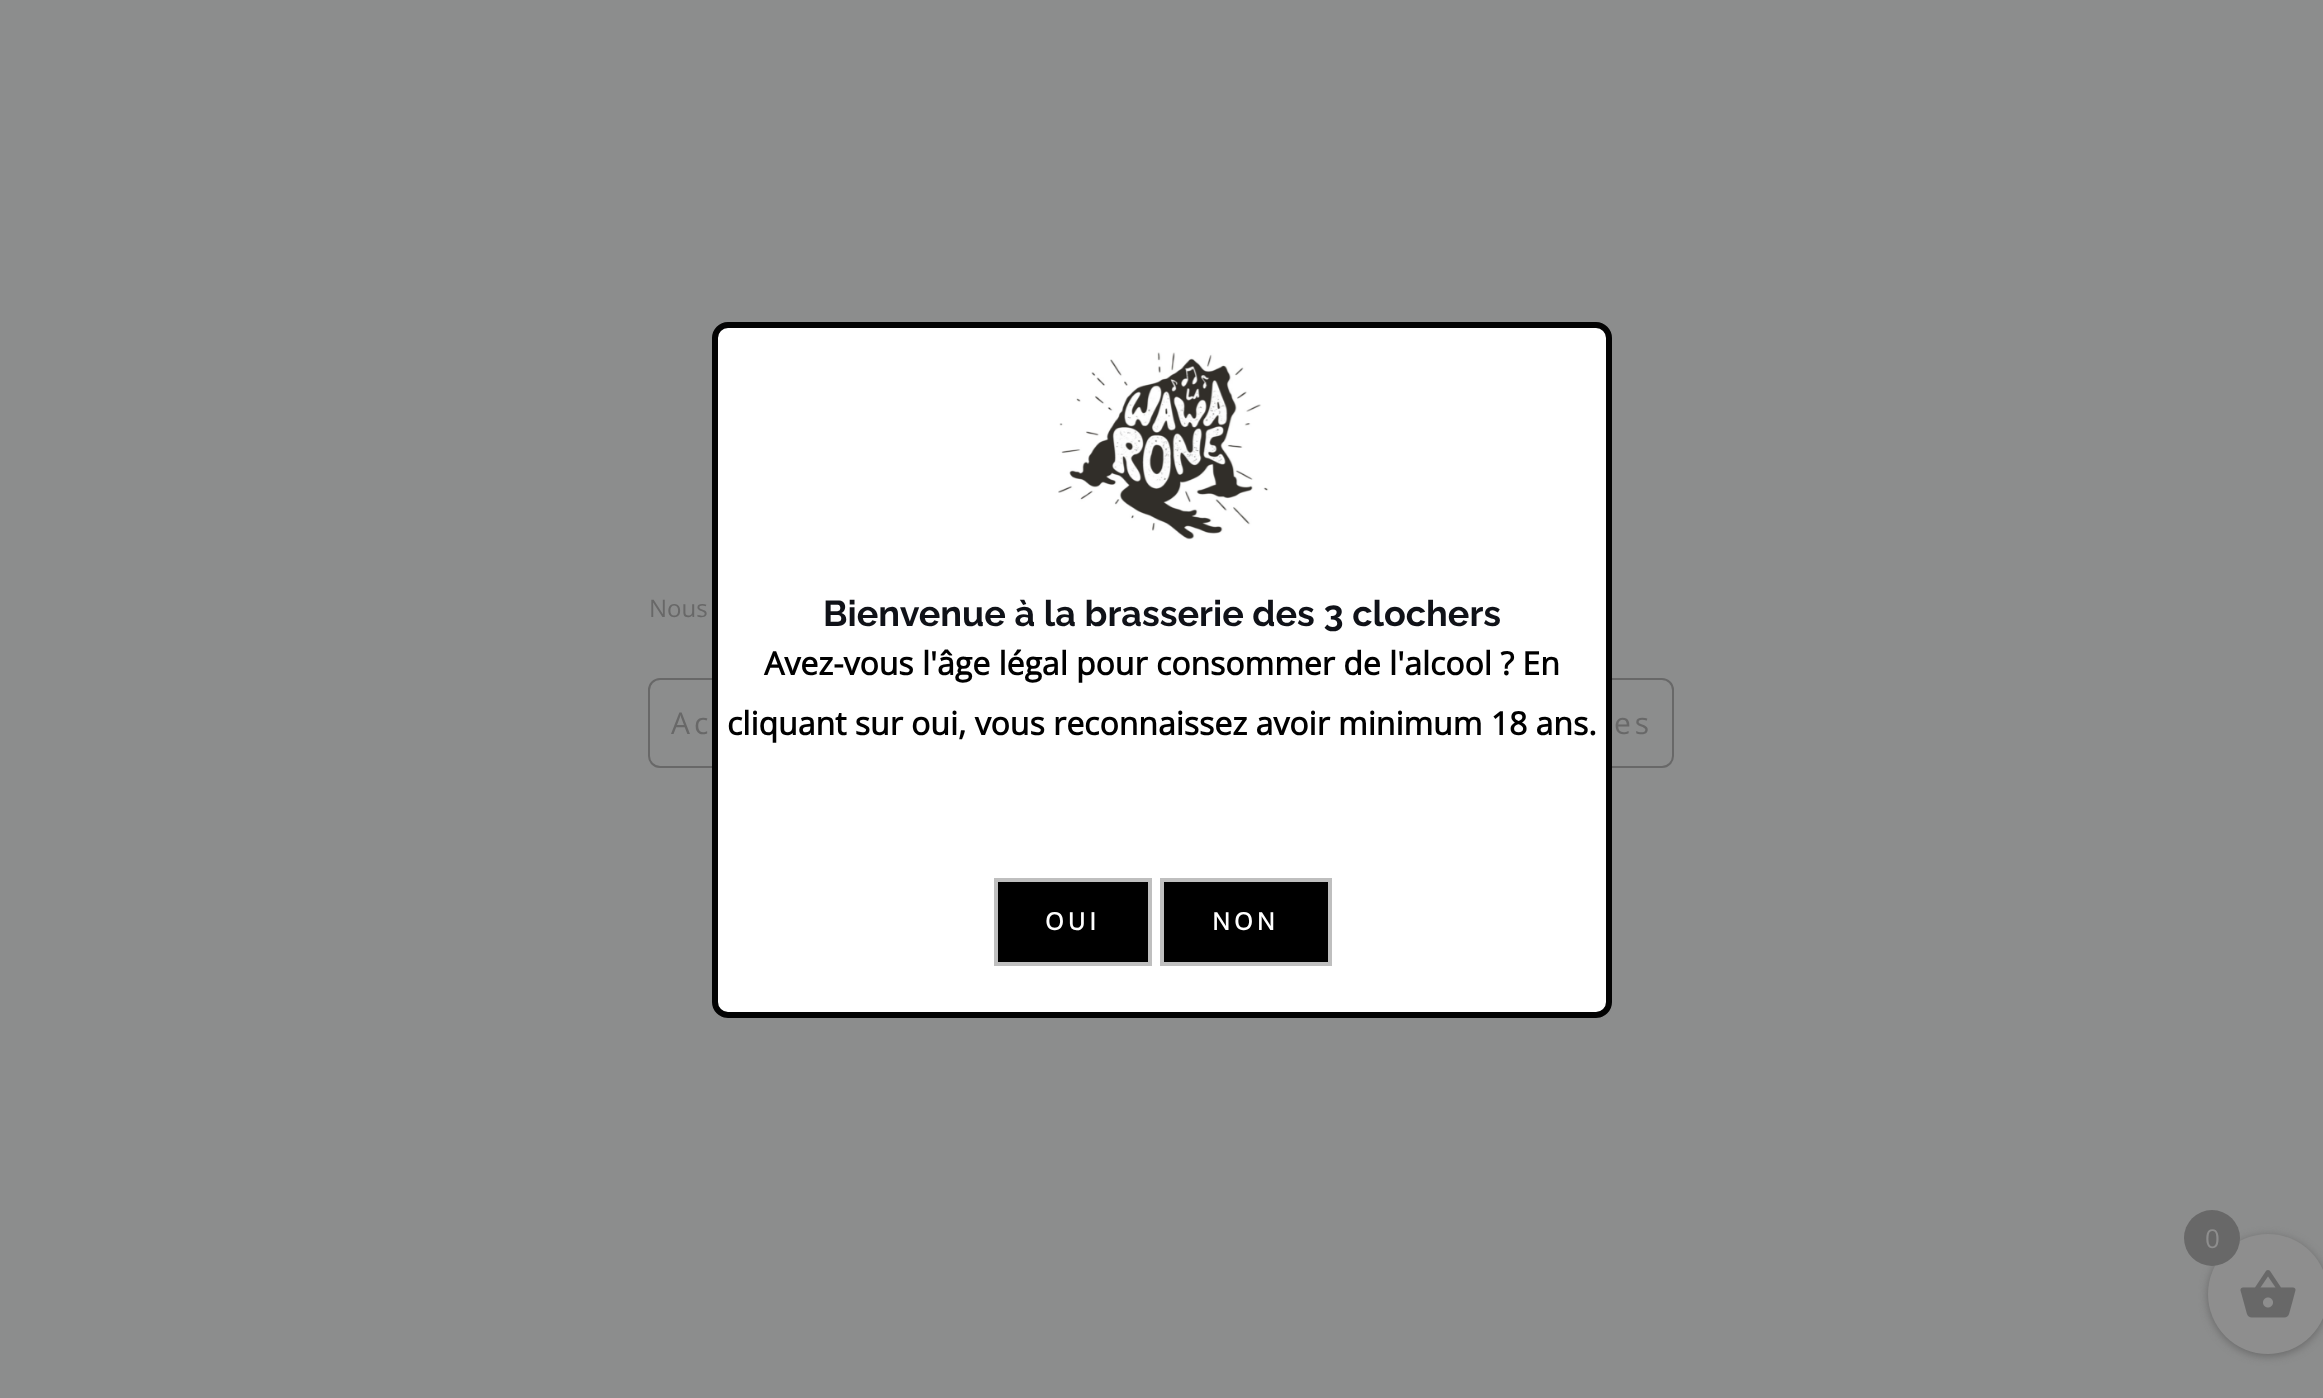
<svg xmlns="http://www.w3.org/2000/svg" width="2323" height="1398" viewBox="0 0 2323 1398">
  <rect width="100%" height="100%" fill="#8c8d8d"/>
  <rect x="649" y="679" width="404" height="88" rx="11" fill="none" stroke="#686868" stroke-width="2"/>
  <rect x="1275" y="679" width="398" height="88" rx="11" fill="none" stroke="#686868" stroke-width="2"/>
  <rect x="715" y="325" width="894" height="690" rx="13" fill="#fff" stroke="#030303" stroke-width="6"/>
  <image x="1058" y="352" width="211" height="188" href="img/1.png"/>
  <path d="M996 880h154v84H996z" fill="#000" stroke="#bfbfbf" stroke-width="4"/>
  <path d="M1162 880h168v84H1162z" fill="#000" stroke="#bfbfbf" stroke-width="4"/>
  <rect x="2208" y="1236" width="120" height="120" rx="60" fill="#686868" filter="blur(4px)"/>
  <circle cx="2268" cy="1294" r="60" fill="#8e8e8e"/>
  <circle cx="2212" cy="1238" r="28" fill="#686868"/>
  <image x="2240" y="1270" width="56" height="48" href="img/2.png"/>
  <text x="649" y="617" font-family="Open Sans" font-size="24" fill="#686868">Nous</text>
  <g font-family="Open Sans" font-size="30" letter-spacing="4" fill="#686868">
    <text x="671" y="734">Ac</text>
    <text x="1614" y="734">es</text>
  </g>
  <text x="823" y="626" font-family="Raleway" font-size="36" font-weight="100" fill="#101218">Bienvenue à la brasserie des 3 clochers</text>
  <g font-family="Open Sans" font-size="32" font-weight="bold" fill="#000">
    <text x="764" y="675">Avez-vous l'âge légal pour consommer de l'alcool ? En</text>
    <text x="727" y="735">cliquant sur oui, vous reconnaissez avoir minimum 18 ans.</text>
  </g>
  <g font-family="Open Sans" font-size="24" font-weight="bold" letter-spacing="4" fill="#fff">
    <text x="1045" y="930">OUI</text>
    <text x="1212" y="930">NON</text>
  </g>
  <text x="2205" y="1248" font-family="Open Sans" font-size="26" fill="#8e8e8e">0</text>
</svg>
